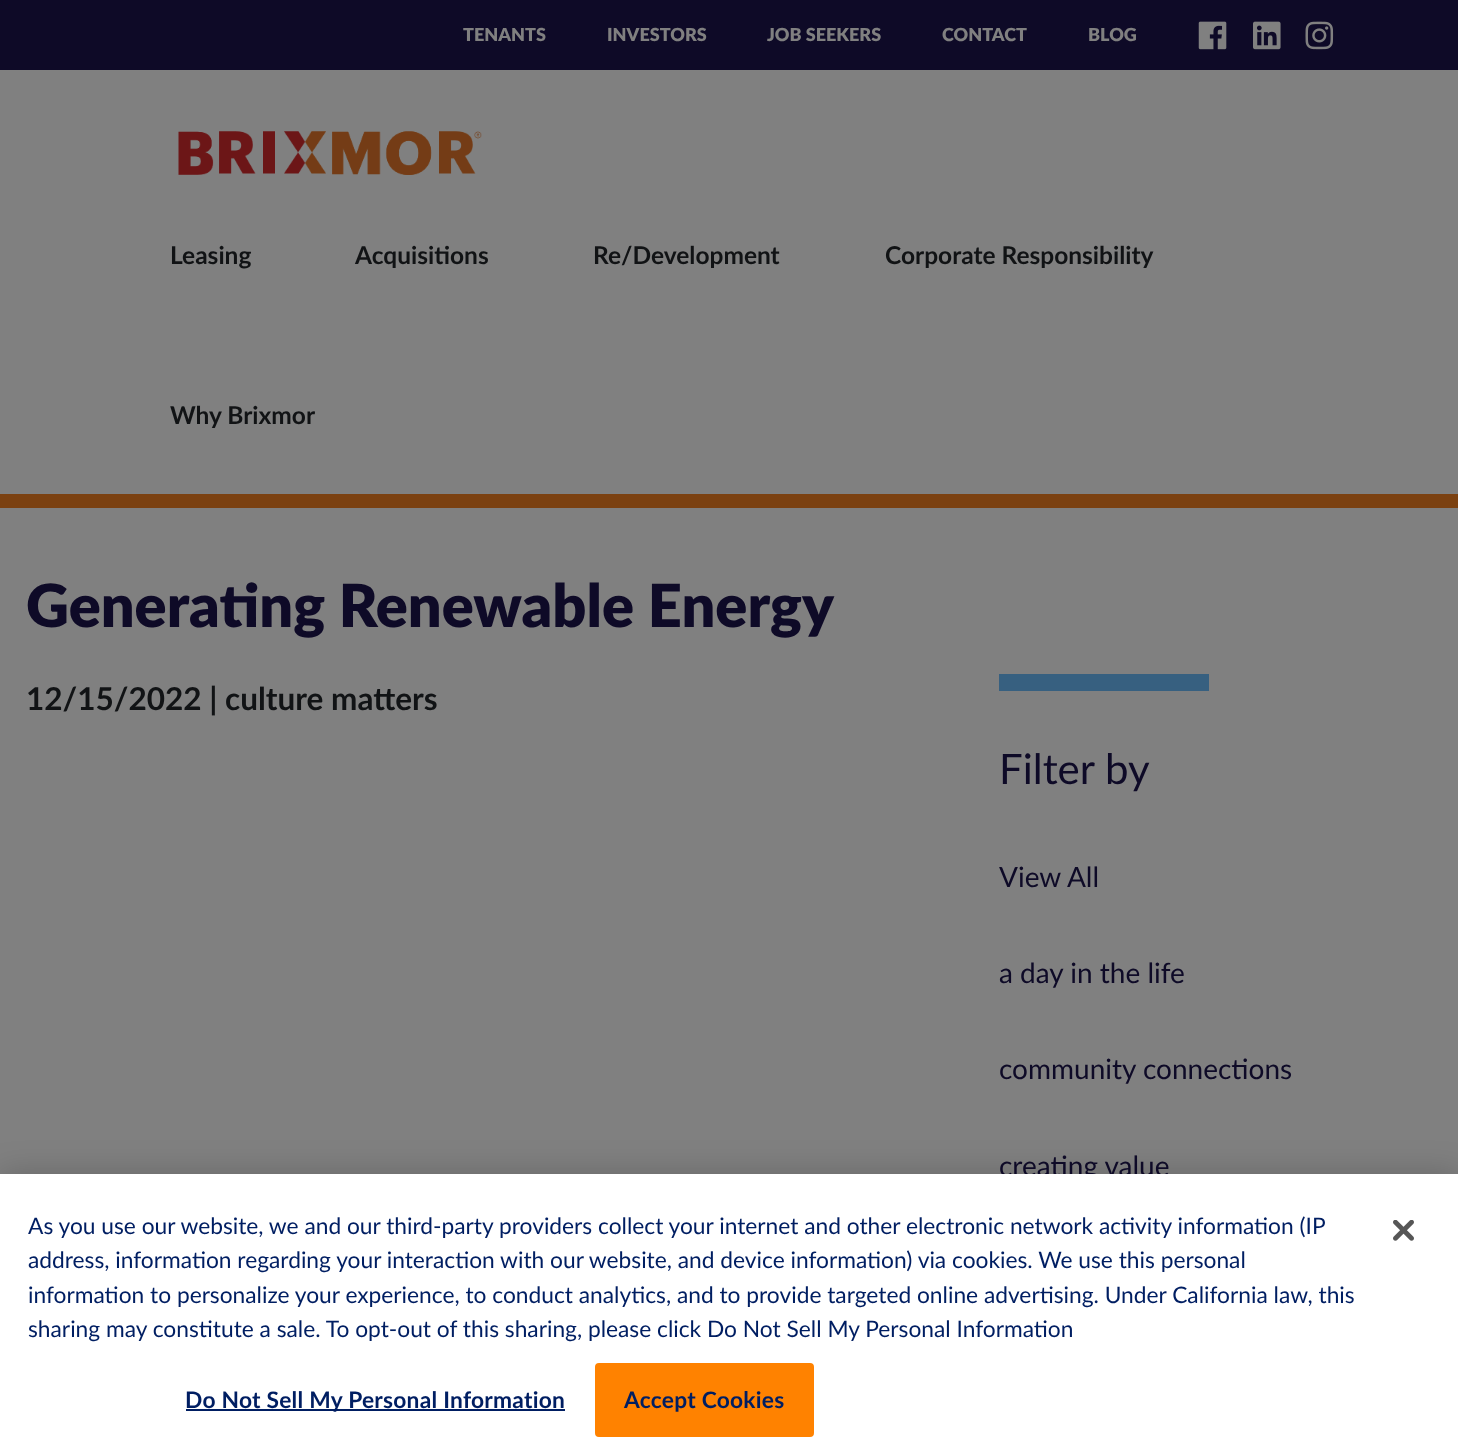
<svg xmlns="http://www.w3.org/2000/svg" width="1458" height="1453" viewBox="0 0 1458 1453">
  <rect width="100%" height="100%" fill="#808080"/>
  <path d="M0 494h1458v14H0z" fill="#7b4111"/>
  <path d="M0 0h1458v70H0z" fill="#0e0a27"/>
  <image x="1198" y="21" width="29" height="29" href="img/1.png"/>
  <image x="1253" y="21" width="28" height="29" href="img/2.png"/>
  <image x="1305" y="21" width="29" height="29" href="img/3.png"/>
  <image x="178" y="131" width="304" height="44" href="img/4.png"/>
  <path d="M999 674h210v17H999z" fill="#376080"/>
  <path d="M0 1174h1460v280H0z" fill="#00000033" filter="blur(16px)"/>
  <g font-family="Lato" font-size="18" font-weight="900" fill="#808080">
    <text x="463" y="41">TENANTS</text>
    <text x="607" y="41">INVESTORS</text>
    <text x="767" y="41">JOB SEEKERS</text>
    <text x="942" y="41">CONTACT</text>
    <text x="1088" y="41">BLOG</text>
  </g>
  <g font-family="Lato" font-size="24.5" font-weight="bold" fill="#111315">
    <text x="170" y="264">Leasing</text>
    <text x="355" y="264">Acquisitions</text>
    <text x="593" y="264">Re/Development</text>
    <text x="885" y="264">Corporate Responsibility</text>
    <text x="170" y="424">Why Brixmor</text>
  </g>
  <text x="26" y="627" font-family="Lato" font-size="59.5" font-weight="900" fill="#0e0a27">Generating Renewable Energy</text>
  <text x="26" y="710" font-family="Lato" font-size="31.5" font-weight="bold" fill="#111315">12/15/2022 | culture matters</text>
  <text x="999" y="784" font-family="Lato" font-size="42" fill="#0e0a27">Filter by</text>
  <g font-family="Lato" font-size="28" fill="#0e0a27">
    <text x="999" y="887">View All</text>
    <text x="999" y="983">a day in the life</text>
    <text x="999" y="1079">community connections</text>
    <text x="999" y="1176">creating value</text>
  </g>
  <path d="M0 1174h1458v279H0z" fill="#fff"/>
  <g font-family="Lato" font-size="22.75" fill="#001e62">
    <text x="28" y="1234">As you use our website, we and our third-party providers collect your internet and other electronic network activity information (IP</text>
    <text x="28" y="1268">address, information regarding your interaction with our website, and device information) via cookies. We use this personal</text>
    <text x="28" y="1303">information to personalize your experience, to conduct analytics, and to provide targeted online advertising. Under California law, this</text>
    <text x="28" y="1337">sharing may constitute a sale. To opt-out of this sharing, please click Do Not Sell My Personal Information</text>
  </g>
  <path d="M186 1409h379v2H186z" fill="#001e62"/>
  <text x="185" y="1408" font-family="Lato" font-size="22.75" font-weight="bold" letter-spacing="0.25" fill="#001e62">Do Not Sell My Personal Information</text>
  <rect x="596" y="1364" width="217" height="72" rx="3" fill="#ff8200" stroke="#ff8200" stroke-width="2"/>
  <text x="624" y="1408" font-family="Lato" font-size="22.75" font-weight="bold" letter-spacing="0.25" fill="#001e62">Accept Cookies</text>
  <image x="1393" y="1220" width="21" height="21" href="img/5.png"/>
</svg>
